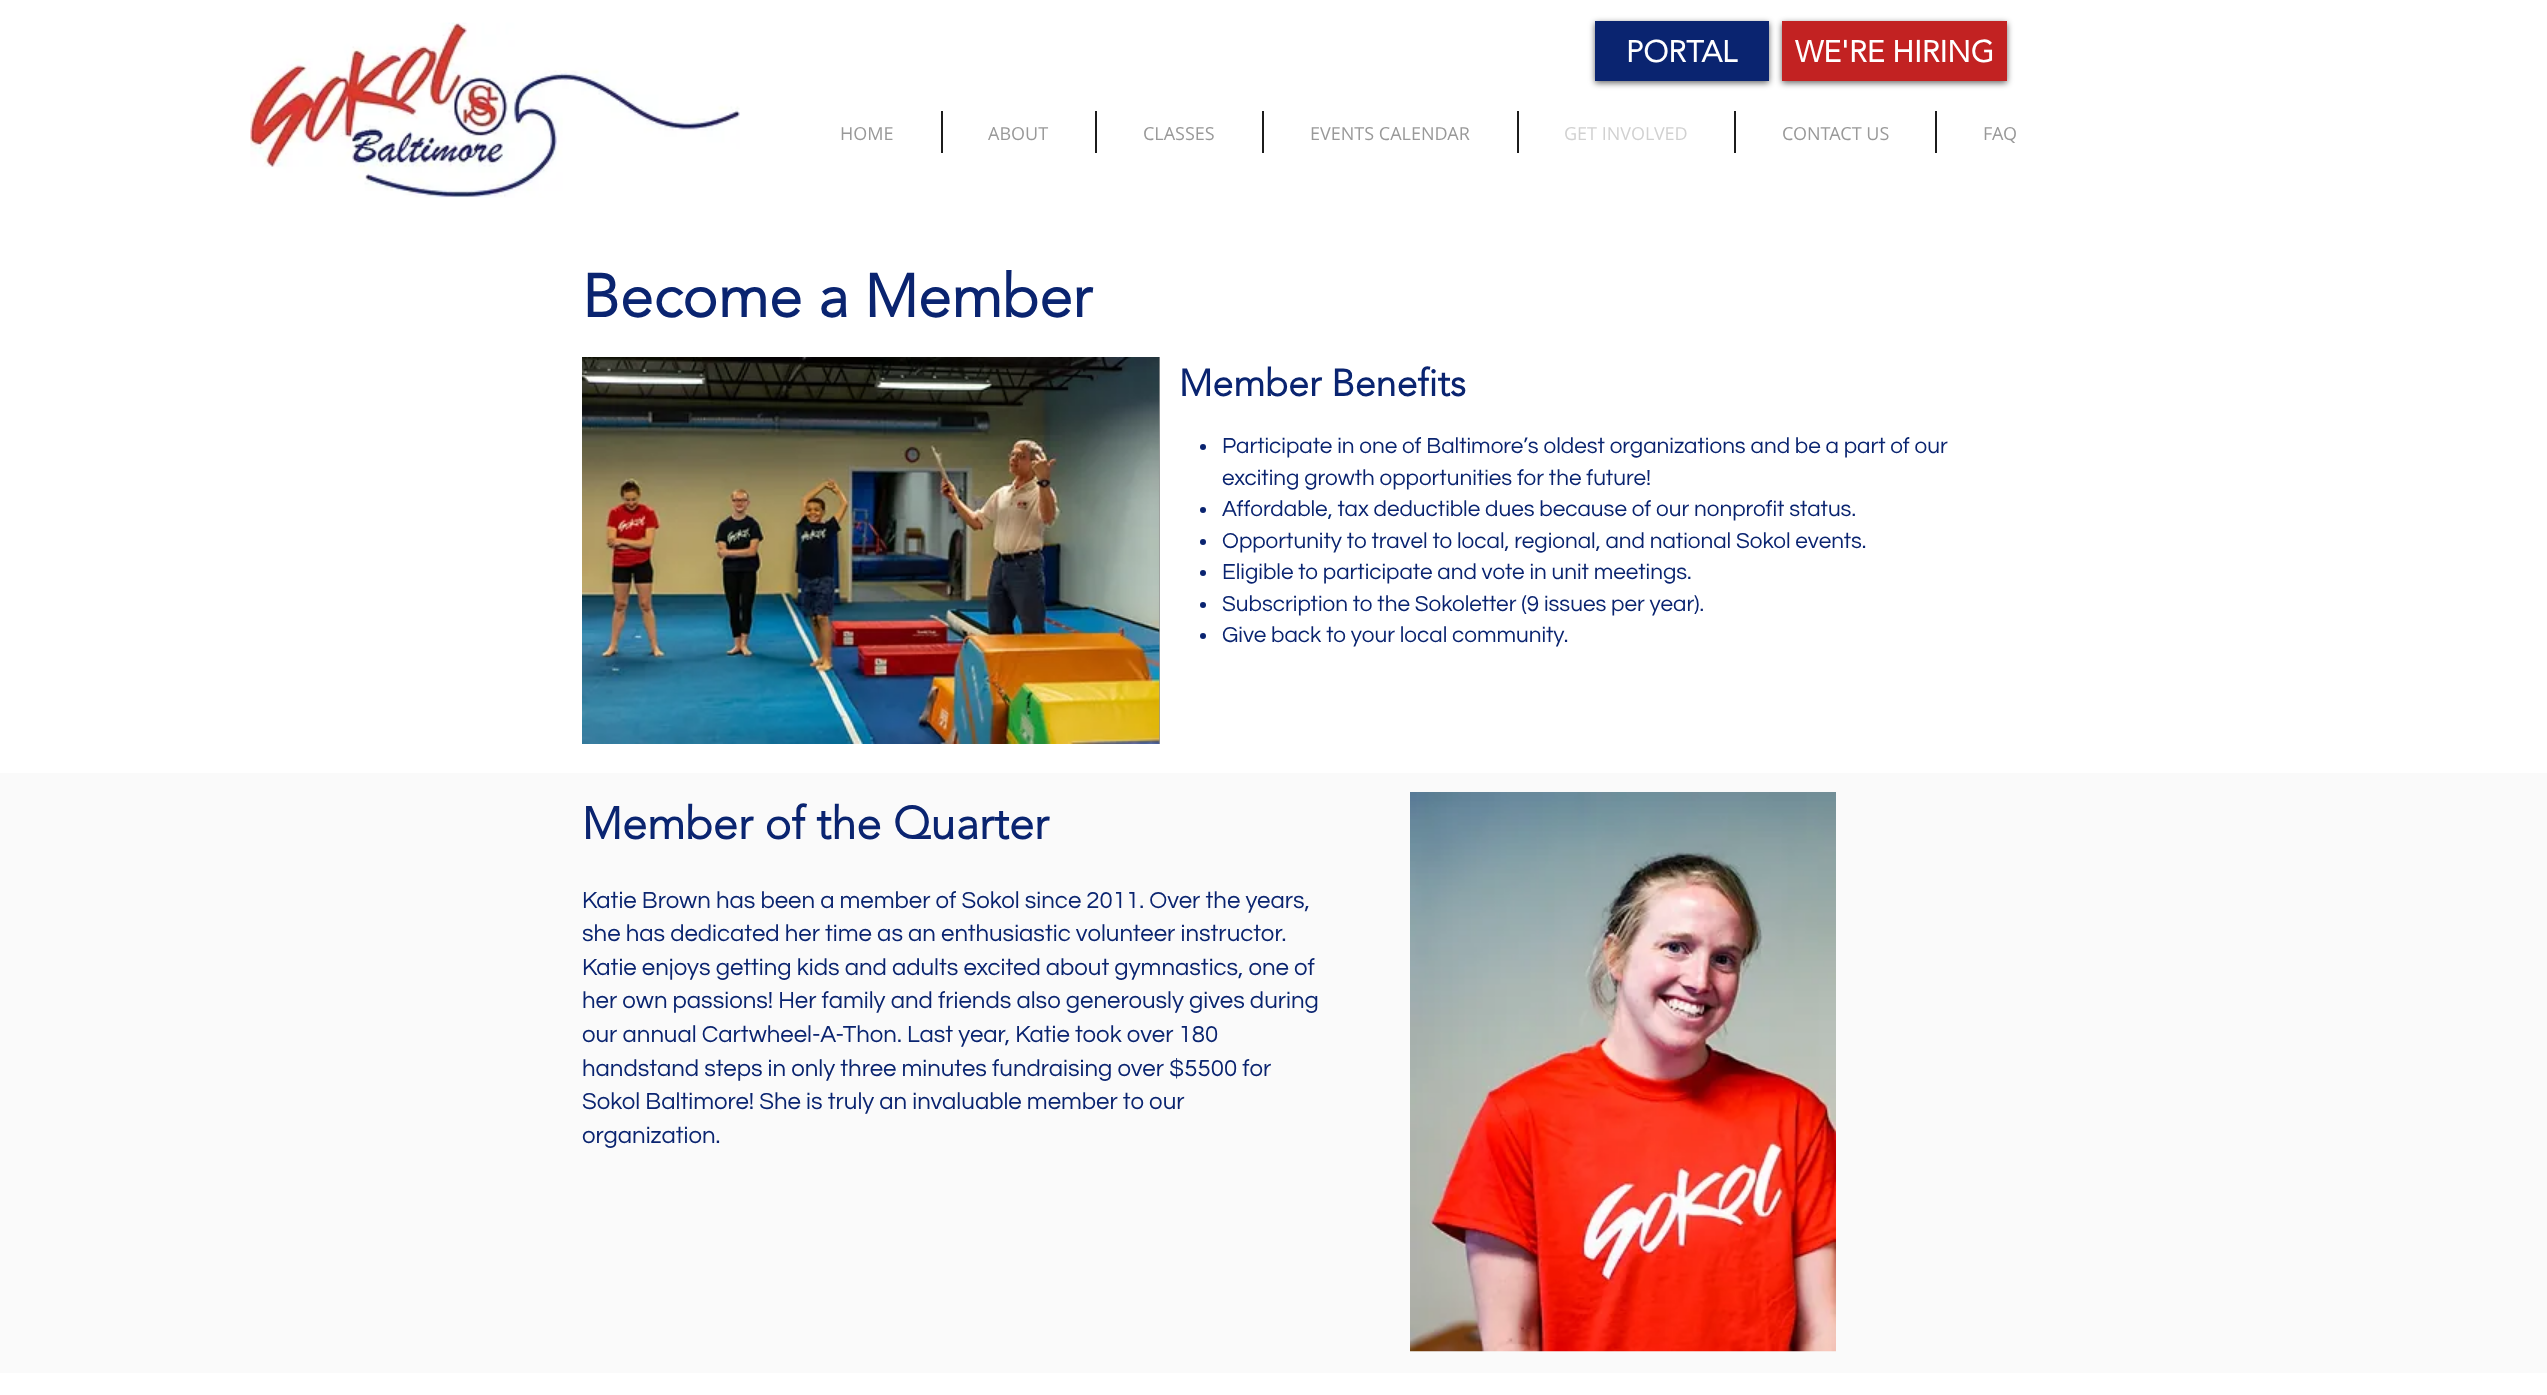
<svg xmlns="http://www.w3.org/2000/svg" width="2547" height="1395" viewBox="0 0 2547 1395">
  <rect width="100%" height="100%" fill="#fff"/>
  <image x="250" y="22" width="490" height="176" href="img/1.png"/>
  <path d="M1595 23h174v60H1595z" fill="#00000099" filter="blur(3px)"/>
  <path d="M1595 21h174v60H1595z" fill="#0a2470"/>
  <path d="M1782 23h225v60H1782z" fill="#00000099" filter="blur(3px)"/>
  <path d="M1782 21h225v60H1782z" fill="#c22222"/>
  <path d="M941 111h2v42H941z" fill="#1c1c1c"/>
  <path d="M1095 111h2v42H1095z" fill="#1c1c1c"/>
  <path d="M1262 111h2v42H1262z" fill="#1c1c1c"/>
  <path d="M1517 111h2v42H1517z" fill="#1c1c1c"/>
  <path d="M1734 111h2v42H1734z" fill="#1c1c1c"/>
  <path d="M1935 111h2v42H1935z" fill="#1c1c1c"/>
  <path d="M1159 357h1v387H1159z" fill="#999"/>
  <image x="582" y="357" width="578" height="387" href="img/2.png"/>
  <circle cx="1203" cy="447" r="3" fill="#0a2470"/>
  <circle cx="1203" cy="510" r="3" fill="#0a2470"/>
  <circle cx="1203" cy="542" r="3" fill="#0a2470"/>
  <circle cx="1203" cy="573" r="3" fill="#0a2470"/>
  <circle cx="1203" cy="605" r="3" fill="#0a2470"/>
  <circle cx="1203" cy="636" r="3" fill="#0a2470"/>
  <path d="M0 773h2547v600H0z" fill="#fafafa"/>
  <image x="1410" y="792" width="426" height="560" href="img/3.png"/>
  <g font-family="'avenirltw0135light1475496'" font-size="30" font-weight="bold" fill="#fff">
    <text x="1626" y="62">PORTAL</text>
    <text x="1795" y="62">WE'RE HIRING</text>
  </g>
  <g font-family="Open Sans" font-size="18" fill="#999">
    <text x="840" y="140">HOME</text>
    <text x="988" y="140">ABOUT</text>
    <text x="1143" y="140">CLASSES</text>
    <text x="1310" y="140">EVENTS CALENDAR</text>
  </g>
  <text x="1564" y="140" font-family="Open Sans" font-size="18" fill="#d1d1d1">GET INVOLVED</text>
  <g font-family="Open Sans" font-size="18" fill="#999">
    <text x="1782" y="140">CONTACT US</text>
    <text x="1983" y="140">FAQ</text>
  </g>
  <text x="582" y="317" font-family="'avenirltw0135light1475496'" font-size="60" font-weight="bold" fill="#0a2470">Become a Member</text>
  <text x="1179" y="396" font-family="'avenirltw0135light1475496'" font-size="37.5" font-weight="bold" fill="#0a2470">Member Benefits</text>
  <g font-family="Questrial" font-size="22.5" fill="#0a2470">
    <text x="1222" y="453">Participate in one of Baltimore’s oldest organizations and be a part of our</text>
    <text x="1222" y="485">exciting growth opportunities for the future!</text>
    <text x="1222" y="516">Affordable, tax deductible dues because of our nonprofit status.</text>
    <text x="1222" y="548">Opportunity to travel to local, regional, and national Sokol events.</text>
    <text x="1222" y="579">Eligible to participate and vote in unit meetings.</text>
    <text x="1222" y="611">Subscription to the Sokoletter (9 issues per year).</text>
    <text x="1222" y="642">Give back to your local community.</text>
  </g>
  <text x="582" y="839" font-family="'avenirltw0135light1475496'" font-size="45" font-weight="bold" fill="#0a2470">Member of the Quarter</text>
  <g font-family="Questrial" font-size="24" fill="#0a2470">
    <text x="582" y="908">Katie Brown has been a member of Sokol since 2011. Over the years,</text>
    <text x="582" y="941">she has dedicated her time as an enthusiastic volunteer instructor.</text>
    <text x="582" y="975">Katie enjoys getting kids and adults excited about gymnastics, one of</text>
    <text x="582" y="1008">her own passions! Her family and friends also generously gives during</text>
    <text x="582" y="1042">our annual Cartwheel-A-Thon. Last year, Katie took over 180</text>
    <text x="582" y="1076">handstand steps in only three minutes fundraising over $5500 for</text>
    <text x="582" y="1109">Sokol Baltimore! She is truly an invaluable member to our</text>
    <text x="582" y="1143">organization.</text>
  </g>
</svg>
